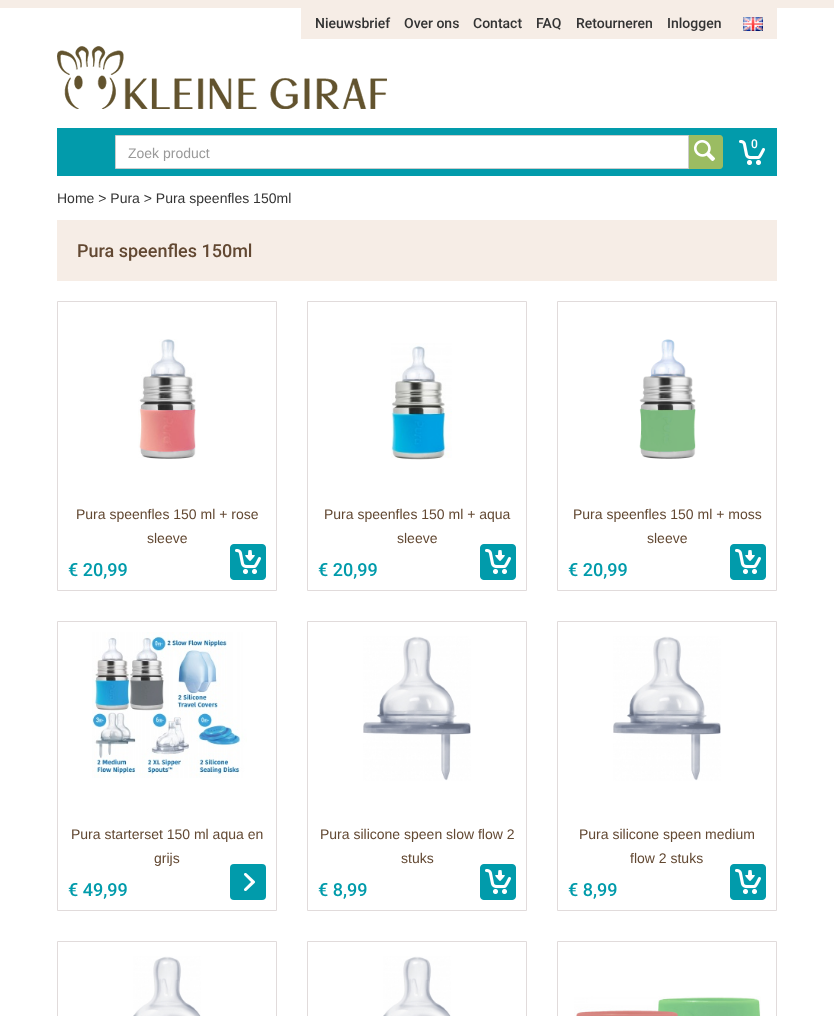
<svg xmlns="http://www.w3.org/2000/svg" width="834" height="1016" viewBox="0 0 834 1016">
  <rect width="100%" height="100%" fill="#fff"/>
  <path d="M0 0h834v8H0z" fill="#f6ede6"/>
  <path d="M301 8h476v31H301z" fill="#f6ede6"/>
  <image x="743" y="17" width="20" height="14" href="img/1.png"/>
  <image x="57" y="46" width="330" height="63" href="img/2.png"/>
  <path d="M57 128h720v48H57z" fill="#029bab"/>
  <image x="739" y="140" width="26" height="25" href="img/3.png"/>
  <path d="M688 135H720C721.5 135 723 136.5 723 138V166C723 167.5 721.5 169 720 169H688Z" fill="#9bbc62"/>
  <path d="M115.5 135.5h573v33H115.5z" fill="#fff" stroke="#ccc"/>
  <image x="694" y="140" width="21" height="21" href="img/4.png"/>
  <path d="M57 220h720v61H57z" fill="#f6ede6"/>
  <path d="M57.5 301.5h219v289H57.5z" fill="none" stroke="#e1dbdb"/>
  <image x="138" y="339" width="58" height="120" href="img/5.png"/>
  <image x="230" y="544" width="36" height="36" href="img/6.png"/>
  <path d="M307.5 301.5h219v289H307.5z" fill="none" stroke="#e1dbdb"/>
  <image x="391" y="343" width="61" height="117" href="img/7.png"/>
  <image x="480" y="544" width="36" height="36" href="img/6.png"/>
  <path d="M557.5 301.5h219v289H557.5z" fill="none" stroke="#e1dbdb"/>
  <image x="639" y="339" width="57" height="120" href="img/8.png"/>
  <image x="730" y="544" width="36" height="36" href="img/6.png"/>
  <path d="M57.5 621.5h219v289H57.5z" fill="none" stroke="#e1dbdb"/>
  <image x="92" y="632" width="155" height="146" href="img/9.png"/>
  <rect x="230" y="864" width="36" height="36" rx="4" fill="#019bab"/>
  <image x="244" y="873" width="11" height="18" href="img/10.png"/>
  <path d="M307.5 621.5h219v289H307.5z" fill="none" stroke="#e1dbdb"/>
  <image x="363" y="636" width="108" height="145" href="img/11.png"/>
  <image x="480" y="864" width="36" height="36" href="img/6.png"/>
  <path d="M557.5 621.5h219v289H557.5z" fill="none" stroke="#e1dbdb"/>
  <image x="613" y="636" width="108" height="145" href="img/12.png"/>
  <image x="730" y="864" width="36" height="36" href="img/6.png"/>
  <path d="M57.5 941.5h219v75H57.5z" fill="none" stroke="#e1dbdb"/>
  <image x="133" y="956" width="68" height="60" href="img/13.png"/>
  <path d="M307.5 941.5h219v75H307.5z" fill="none" stroke="#e1dbdb"/>
  <image x="383" y="956" width="68" height="60" href="img/13.png"/>
  <path d="M557.5 941.5h219v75H557.5z" fill="none" stroke="#e1dbdb"/>
  <image x="574" y="996" width="187" height="20" href="img/14.png"/>
  <g font-family="Roboto" font-size="14" font-weight="500" fill="#333">
    <text x="315" y="28">Nieuwsbrief</text>
    <text x="404" y="28">Over ons</text>
    <text x="473" y="28">Contact</text>
    <text x="536" y="28">FAQ</text>
    <text x="576" y="28">Retourneren</text>
    <text x="667" y="28">Inloggen</text>
  </g>
  <text x="751" y="148" font-family="Roboto" font-size="12" font-weight="500" fill="#fff">0</text>
  <text x="128" y="158" font-family="Liberation Sans" font-size="14" fill="#999">Zoek product</text>
  <text x="57" y="203" font-family="Liberation Sans" font-size="14" fill="#333">Home &gt; Pura &gt; Pura speenfles 150ml</text>
  <text x="77" y="257" font-family="Roboto" font-size="18" font-weight="500" fill="#624832">Pura speenfles 150ml</text>
  <g font-family="Liberation Sans" font-size="14" fill="#624832">
    <text x="76" y="519">Pura speenfles 150 ml + rose</text>
    <text x="147" y="543">sleeve</text>
  </g>
  <text x="68" y="576" font-family="Roboto" font-size="18" font-weight="500" fill="#019bab">€ 20,99</text>
  <g font-family="Liberation Sans" font-size="14" fill="#624832">
    <text x="324" y="519">Pura speenfles 150 ml + aqua</text>
    <text x="397" y="543">sleeve</text>
  </g>
  <text x="318" y="576" font-family="Roboto" font-size="18" font-weight="500" fill="#019bab">€ 20,99</text>
  <g font-family="Liberation Sans" font-size="14" fill="#624832">
    <text x="573" y="519">Pura speenfles 150 ml + moss</text>
    <text x="647" y="543">sleeve</text>
  </g>
  <text x="568" y="576" font-family="Roboto" font-size="18" font-weight="500" fill="#019bab">€ 20,99</text>
  <g font-family="Liberation Sans" font-size="14" fill="#624832">
    <text x="71" y="839">Pura starterset 150 ml aqua en</text>
    <text x="154" y="863">grijs</text>
  </g>
  <text x="68" y="896" font-family="Roboto" font-size="18" font-weight="500" fill="#019bab">€ 49,99</text>
  <g font-family="Liberation Sans" font-size="14" fill="#624832">
    <text x="320" y="839">Pura silicone speen slow flow 2</text>
    <text x="401" y="863">stuks</text>
  </g>
  <text x="318" y="896" font-family="Roboto" font-size="18" font-weight="500" fill="#019bab">€ 8,99</text>
  <g font-family="Liberation Sans" font-size="14" fill="#624832">
    <text x="579" y="839">Pura silicone speen medium</text>
    <text x="630" y="863">flow 2 stuks</text>
  </g>
  <text x="568" y="896" font-family="Roboto" font-size="18" font-weight="500" fill="#019bab">€ 8,99</text>
</svg>
